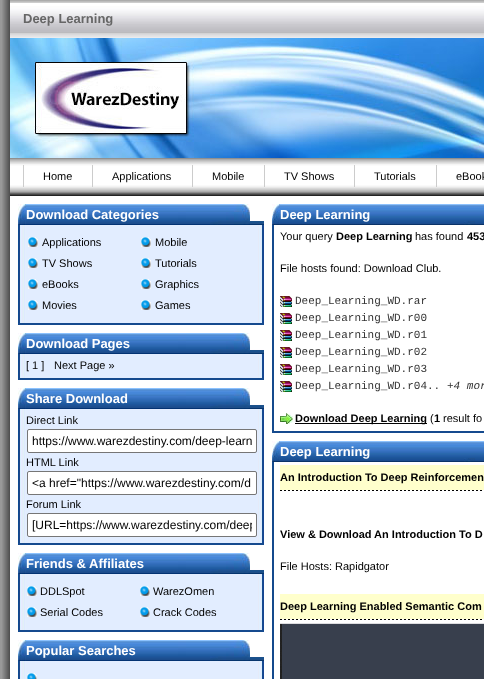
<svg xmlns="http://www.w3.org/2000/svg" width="484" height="679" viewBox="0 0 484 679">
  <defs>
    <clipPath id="clip1"><path d="M32 518h220v14H32z"/></clipPath>
  </defs>
  <rect width="100%" height="100%" fill="#999"/>
  <image x="2" y="0" width="482" height="679" href="img/1.png"/>
  <image x="10" y="0" width="474" height="38" href="img/2.png"/>
  <image x="10" y="38" width="205" height="120" href="img/3.png"/>
  <image x="215" y="38" width="269" height="120" href="img/4.png"/>
  <image x="10" y="158" width="474" height="38" href="img/5.png"/>
  <path d="M23 165h1v22H23z" fill="#ccc"/>
  <path d="M92 165h1v22H92z" fill="#ccc"/>
  <path d="M192 165h1v22H192z" fill="#ccc"/>
  <path d="M264 165h1v22H264z" fill="#ccc"/>
  <path d="M354 165h1v22H354z" fill="#ccc"/>
  <path d="M436 165h1v22H436z" fill="#ccc"/>
  <image x="18" y="204" width="246" height="21" href="img/6.png"/>
  <image x="18" y="225" width="246" height="98" href="img/7.png"/>
  <image x="28" y="237" width="10" height="10" href="img/8.png"/>
  <image x="141" y="237" width="10" height="10" href="img/8.png"/>
  <image x="28" y="258" width="10" height="10" href="img/8.png"/>
  <image x="141" y="258" width="10" height="10" href="img/8.png"/>
  <image x="28" y="279" width="10" height="10" href="img/8.png"/>
  <image x="141" y="279" width="10" height="10" href="img/8.png"/>
  <image x="28" y="300" width="10" height="10" href="img/8.png"/>
  <image x="141" y="300" width="10" height="10" href="img/8.png"/>
  <path d="M18 323h246v2H18z" fill="#154a8e"/>
  <image x="18" y="333" width="246" height="21" href="img/6.png"/>
  <image x="18" y="354" width="246" height="24" href="img/9.png"/>
  <path d="M18 378h246v2H18z" fill="#154a8e"/>
  <image x="18" y="388" width="246" height="21" href="img/6.png"/>
  <image x="18" y="409" width="246" height="134" href="img/10.png"/>
  <rect x="27.5" y="429.5" width="229" height="23" rx="1.5" fill="#fff" stroke="#767676"/>
  <rect x="27.5" y="471.5" width="229" height="23" rx="1.5" fill="#fff" stroke="#767676"/>
  <rect x="27.5" y="513.5" width="229" height="23" rx="1.5" fill="#fff" stroke="#767676"/>
  <path d="M18 543h246v2H18z" fill="#154a8e"/>
  <image x="18" y="553" width="246" height="21" href="img/6.png"/>
  <image x="18" y="574" width="246" height="56" href="img/11.png"/>
  <image x="27" y="586" width="10" height="10" href="img/8.png"/>
  <image x="140" y="586" width="10" height="10" href="img/8.png"/>
  <image x="27" y="607" width="10" height="10" href="img/8.png"/>
  <image x="140" y="607" width="10" height="10" href="img/8.png"/>
  <path d="M18 630h246v2H18z" fill="#154a8e"/>
  <image x="18" y="640" width="246" height="21" href="img/6.png"/>
  <image x="18" y="661" width="246" height="18" href="img/12.png"/>
  <image x="27" y="673" width="10" height="6" href="img/13.png"/>
  <image x="272" y="204" width="212" height="21" href="img/14.png"/>
  <path d="M272 225h2v206H272z" fill="#144a8d"/>
  <image x="280" y="296" width="12" height="11" href="img/15.png"/>
  <image x="280" y="313" width="12" height="11" href="img/15.png"/>
  <image x="280" y="330" width="12" height="11" href="img/15.png"/>
  <image x="280" y="347" width="12" height="11" href="img/15.png"/>
  <image x="280" y="364" width="12" height="11" href="img/15.png"/>
  <image x="280" y="381" width="12" height="11" href="img/15.png"/>
  <image x="280" y="413" width="13" height="11" href="img/16.png"/>
  <path d="M295 423h132v1H295z" fill="#000"/>
  <path d="M272 431h212v2H272z" fill="#154a8e"/>
  <image x="272" y="441" width="212" height="21" href="img/14.png"/>
  <path d="M272 462h2v217H272z" fill="#144a8d"/>
  <path d="M280 465h204v25H280z" fill="#ffc"/>
  <image x="280" y="490" width="202" height="1" href="img/17.png"/>
  <path d="M280 594h204v25H280z" fill="#ffc"/>
  <image x="280" y="619" width="202" height="1" href="img/17.png"/>
  <image x="280" y="623" width="204" height="56" href="img/18.png"/>
  <text x="23" y="23" font-family="Liberation Sans" font-size="13" font-weight="bold" fill="#666">Deep Learning</text>
  <g font-family="Liberation Sans" font-size="11" fill="#000">
    <text x="43" y="180">Home</text>
    <text x="112" y="180">Applications</text>
    <text x="212" y="180">Mobile</text>
    <text x="284" y="180">TV Shows</text>
    <text x="374" y="180">Tutorials</text>
    <text x="456" y="180">eBook</text>
  </g>
  <text x="26" y="219" font-family="Liberation Sans" font-size="13" font-weight="bold" fill="#fff">Download Categories</text>
  <g font-family="Liberation Sans" font-size="11" fill="#000">
    <text x="42" y="246">Applications</text>
    <text x="155" y="246">Mobile</text>
    <text x="42" y="267">TV Shows</text>
    <text x="155" y="267">Tutorials</text>
    <text x="42" y="288">eBooks</text>
    <text x="155" y="288">Graphics</text>
    <text x="42" y="309">Movies</text>
    <text x="155" y="309">Games</text>
  </g>
  <text x="26" y="348" font-family="Liberation Sans" font-size="13" font-weight="bold" fill="#fff">Download Pages</text>
  <g font-family="Liberation Sans" font-size="11" fill="#000">
    <text x="26" y="369">[ 1 ]</text>
    <text x="54" y="369">Next Page »</text>
  </g>
  <text x="26" y="403" font-family="Liberation Sans" font-size="13" font-weight="bold" fill="#fff">Share Download</text>
  <text x="26" y="424" font-family="Liberation Sans" font-size="11" fill="#000">Direct Link</text>
  <text x="32" y="445" font-family="Liberation Sans" font-size="12" fill="#000">https://www.warezdestiny.com/deep-learn</text>
  <text x="26" y="466" font-family="Liberation Sans" font-size="11" fill="#000">HTML Link</text>
  <text x="32" y="487" font-family="Liberation Sans" font-size="12" fill="#000">&lt;a href="https://www.warezdestiny.com/d</text>
  <text x="26" y="508" font-family="Liberation Sans" font-size="11" fill="#000">Forum Link</text>
  <g clip-path="url(#clip1)">
    <text x="32" y="529" font-family="Liberation Sans" font-size="12" fill="#000">[URL=https://www.warezdestiny.com/deep</text>
  </g>
  <text x="26" y="568" font-family="Liberation Sans" font-size="13" font-weight="bold" fill="#fff">Friends &amp; Affiliates</text>
  <g font-family="Liberation Sans" font-size="11" fill="#000">
    <text x="40" y="595">DDLSpot</text>
    <text x="153" y="595">WarezOmen</text>
    <text x="40" y="616">Serial Codes</text>
    <text x="153" y="616">Crack Codes</text>
  </g>
  <g font-family="Liberation Sans" font-size="13" font-weight="bold" fill="#fff">
    <text x="26" y="655">Popular Searches</text>
    <text x="280" y="219">Deep Learning</text>
  </g>
  <text x="280" y="240" font-family="Liberation Sans" font-size="11" fill="#000">Your query</text>
  <text x="336" y="240" font-family="Liberation Sans" font-size="11" font-weight="bold" fill="#000">Deep Learning</text>
  <text x="415" y="240" font-family="Liberation Sans" font-size="11" fill="#000">has found</text>
  <text x="467" y="240" font-family="Liberation Sans" font-size="11" font-weight="bold" fill="#000">453</text>
  <text x="280" y="272" font-family="Liberation Sans" font-size="11" fill="#000">File hosts found: Download Club.</text>
  <g font-family="Liberation Mono" font-size="11" fill="#333">
    <text x="295" y="304">Deep_Learning_WD.rar</text>
    <text x="295" y="321">Deep_Learning_WD.r00</text>
    <text x="295" y="338">Deep_Learning_WD.r01</text>
    <text x="295" y="355">Deep_Learning_WD.r02</text>
    <text x="295" y="372">Deep_Learning_WD.r03</text>
    <text x="295" y="389">Deep_Learning_WD.r04..</text>
  </g>
  <text x="447" y="389" font-family="Liberation Mono" font-size="11" font-style="italic" fill="#333">+4 mor</text>
  <text x="295" y="422" font-family="Liberation Sans" font-size="11" font-weight="bold" fill="#000">Download Deep Learning</text>
  <text x="430" y="422" font-family="Liberation Sans" font-size="11" fill="#000">(</text>
  <text x="434" y="422" font-family="Liberation Sans" font-size="11" font-weight="bold" fill="#000">1</text>
  <text x="443" y="422" font-family="Liberation Sans" font-size="11" fill="#000">result fo</text>
  <text x="280" y="456" font-family="Liberation Sans" font-size="13" font-weight="bold" fill="#fff">Deep Learning</text>
  <g font-family="Liberation Sans" font-size="11" font-weight="bold" fill="#000">
    <text x="280" y="481">An Introduction To Deep Reinforcemen</text>
    <text x="280" y="538">View &amp; Download An Introduction To D</text>
  </g>
  <text x="280" y="570" font-family="Liberation Sans" font-size="11" fill="#000">File Hosts: Rapidgator</text>
  <text x="280" y="610" font-family="Liberation Sans" font-size="11" font-weight="bold" fill="#000">Deep Learning Enabled Semantic Com</text>
</svg>
